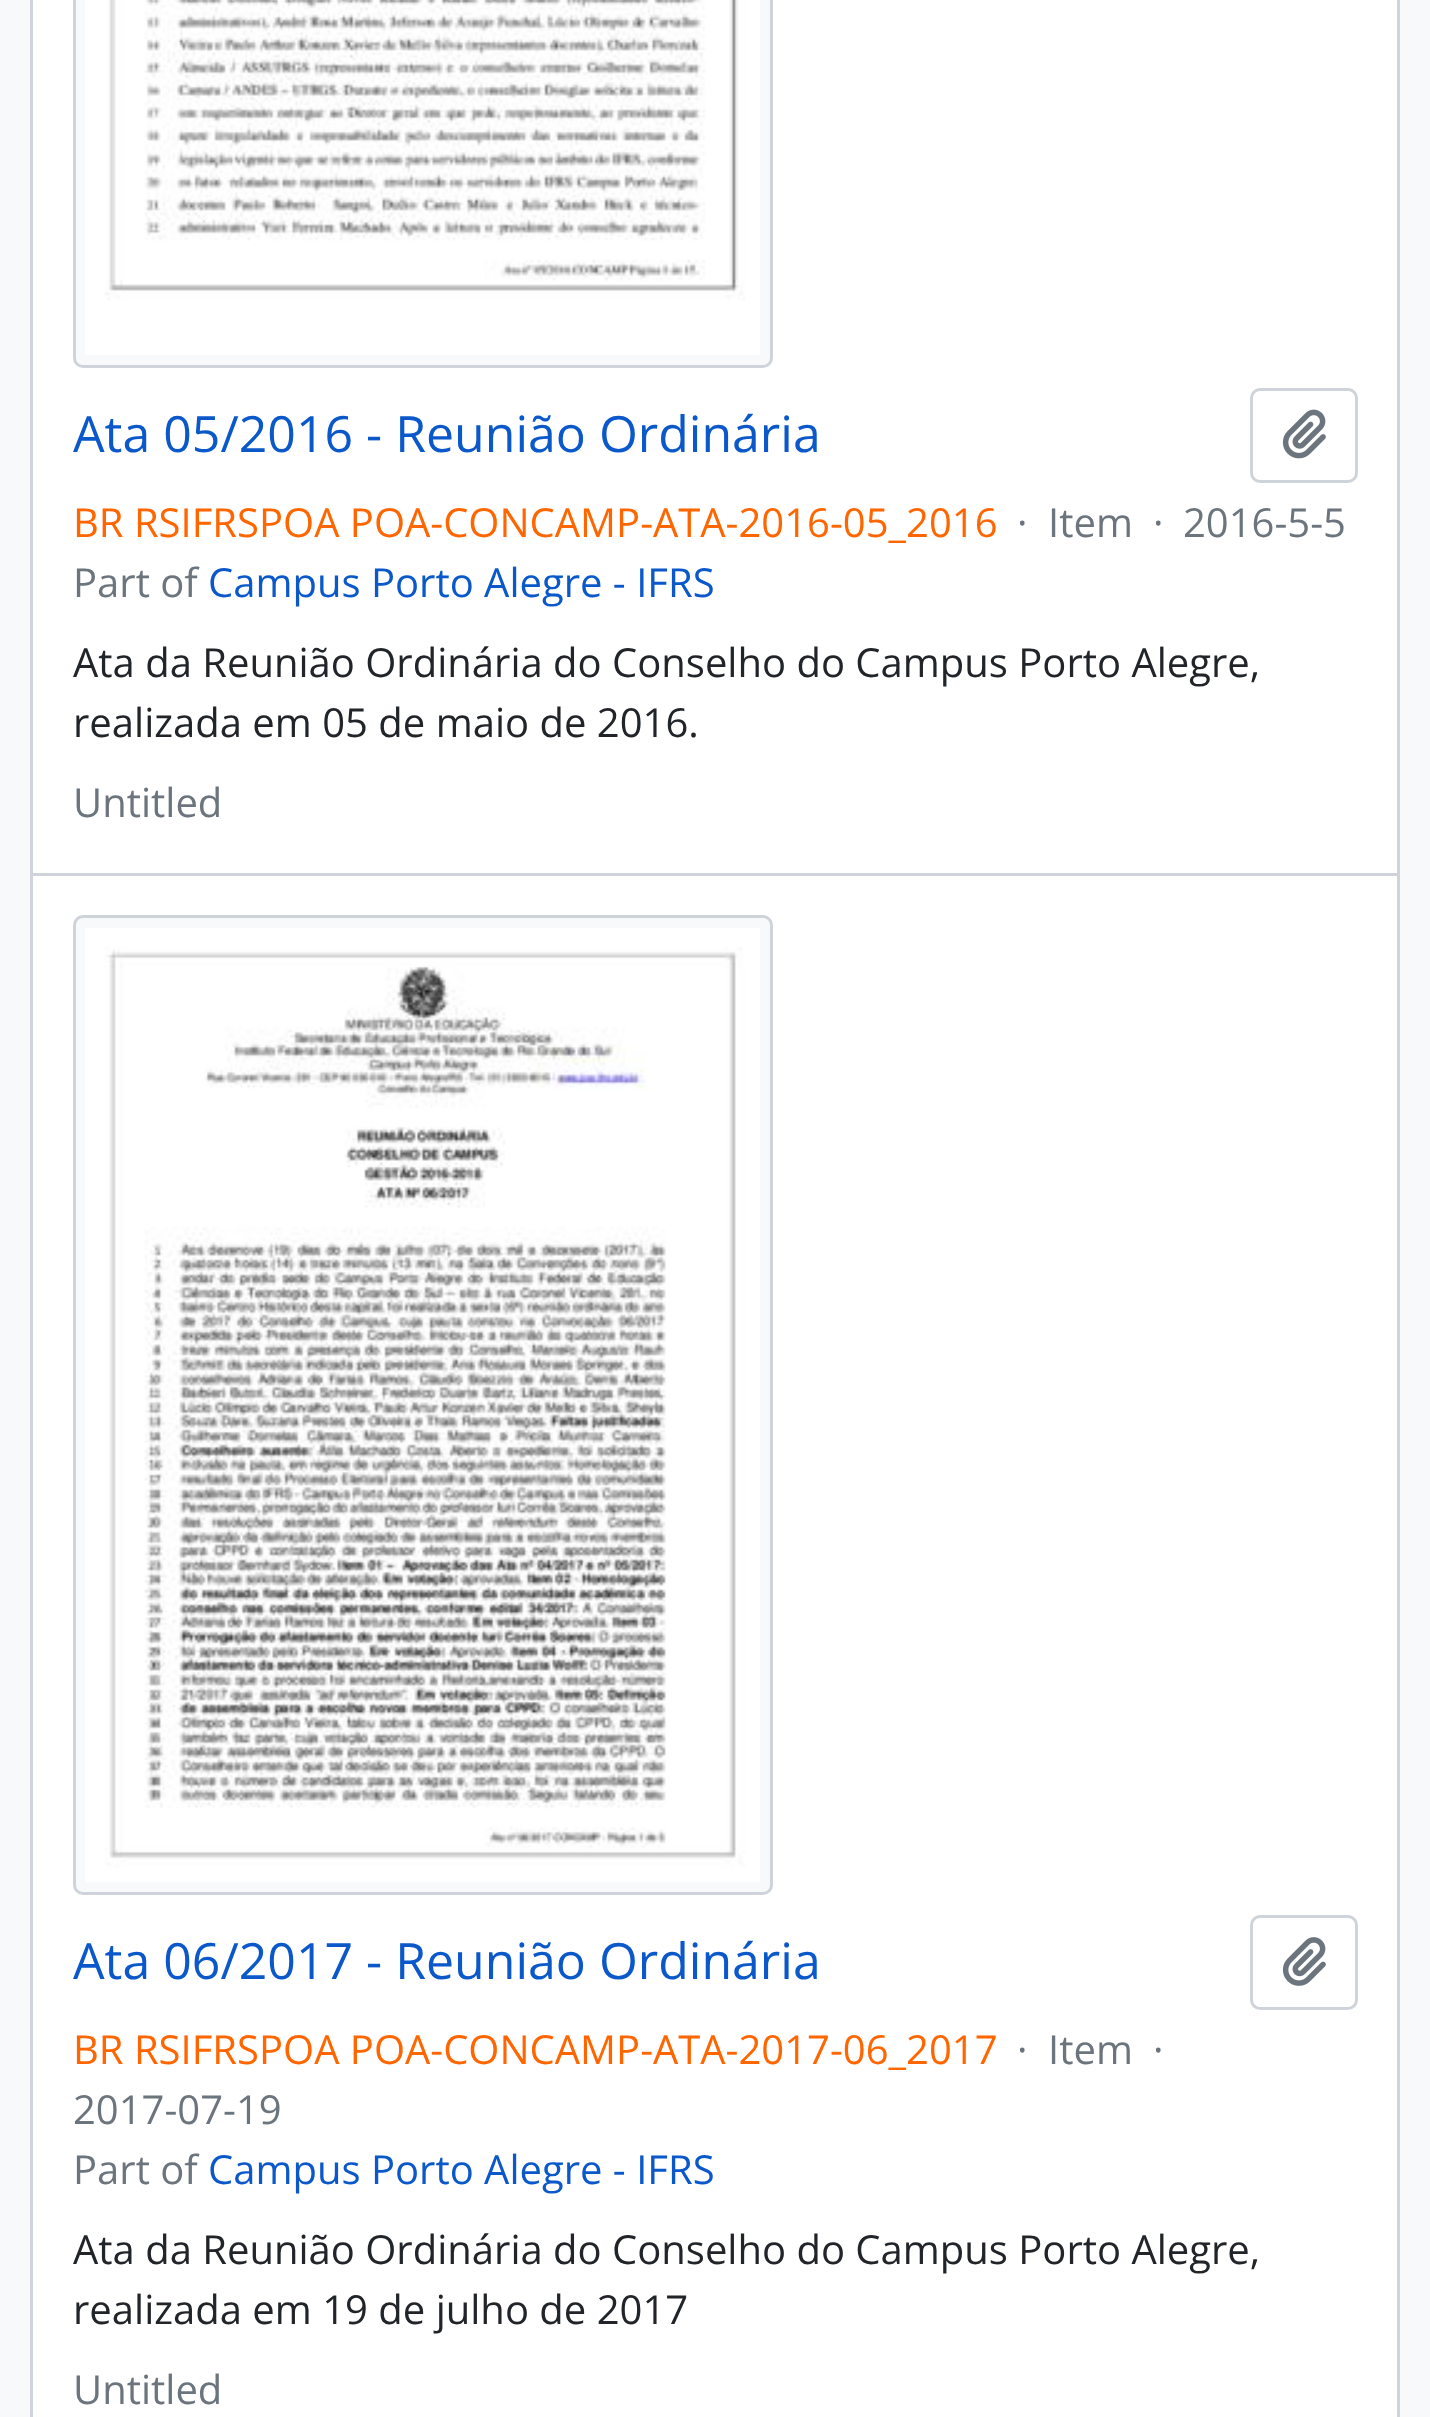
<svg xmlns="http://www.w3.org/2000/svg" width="1430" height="2417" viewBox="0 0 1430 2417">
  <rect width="100%" height="100%" fill="#f8f9fa"/>
  <path d="M31.5 -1.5h1367v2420H31.5z" fill="#fff" stroke="#ced4da" stroke-width="3"/>
  <path d="M33 873h1365v3H33z" fill="#ced4da"/>
  <rect x="74.5" y="-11.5" width="697" height="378" rx="8.5" fill="#f8f9fa" stroke="#ced4da" stroke-width="3"/>
  <image x="85" y="0" width="675" height="355" href="img/1.png"/>
  <rect x="1251.5" y="389.5" width="105" height="92" rx="8.5" fill="none" stroke="#ced4da" stroke-width="3"/>
  <image x="1282" y="409" width="44" height="50" href="img/2.png"/>
  <rect x="74.5" y="916.5" width="697" height="977" rx="8.5" fill="#f8f9fa" stroke="#ced4da" stroke-width="3"/>
  <image x="85" y="928" width="675" height="954" href="img/3.png"/>
  <rect x="1251.5" y="1916.5" width="105" height="92" rx="8.5" fill="none" stroke="#ced4da" stroke-width="3"/>
  <image x="1282" y="1937" width="44" height="49" href="img/4.png"/>
  <text x="73" y="452" font-family="Open Sans" font-size="50" fill="#0a58ca">Ata 05/2016 - Reunião Ordinária</text>
  <text x="73" y="537" font-family="Open Sans" font-size="40" fill="#f60">BR RSIFRSPOA POA-CONCAMP-ATA-2016-05_2016</text>
  <g font-family="Open Sans" font-size="40" fill="#6c757d">
    <text x="1017" y="537">·</text>
    <text x="1048" y="537">Item</text>
    <text x="1153" y="537">·</text>
    <text x="1183" y="537">2016-5-5</text>
    <text x="73" y="597">Part of</text>
  </g>
  <text x="208" y="597" font-family="Open Sans" font-size="40" fill="#0a58ca">Campus Porto Alegre - IFRS</text>
  <g font-family="Open Sans" font-size="40" fill="#212529">
    <text x="73" y="677">Ata da Reunião Ordinária do Conselho do Campus Porto Alegre,</text>
    <text x="73" y="737">realizada em 05 de maio de 2016.</text>
  </g>
  <text x="73" y="817" font-family="Open Sans" font-size="40" fill="#6c757d">Untitled</text>
  <text x="73" y="1979" font-family="Open Sans" font-size="50" fill="#0a58ca">Ata 06/2017 - Reunião Ordinária</text>
  <text x="73" y="2064" font-family="Open Sans" font-size="40" fill="#f60">BR RSIFRSPOA POA-CONCAMP-ATA-2017-06_2017</text>
  <g font-family="Open Sans" font-size="40" fill="#6c757d">
    <text x="1017" y="2064">·</text>
    <text x="1048" y="2064">Item</text>
    <text x="1153" y="2064">·</text>
    <text x="73" y="2124">2017-07-19</text>
    <text x="73" y="2184">Part of</text>
  </g>
  <text x="208" y="2184" font-family="Open Sans" font-size="40" fill="#0a58ca">Campus Porto Alegre - IFRS</text>
  <g font-family="Open Sans" font-size="40" fill="#212529">
    <text x="73" y="2264">Ata da Reunião Ordinária do Conselho do Campus Porto Alegre,</text>
    <text x="73" y="2324">realizada em 19 de julho de 2017</text>
  </g>
  <text x="73" y="2404" font-family="Open Sans" font-size="40" fill="#6c757d">Untitled</text>
</svg>
